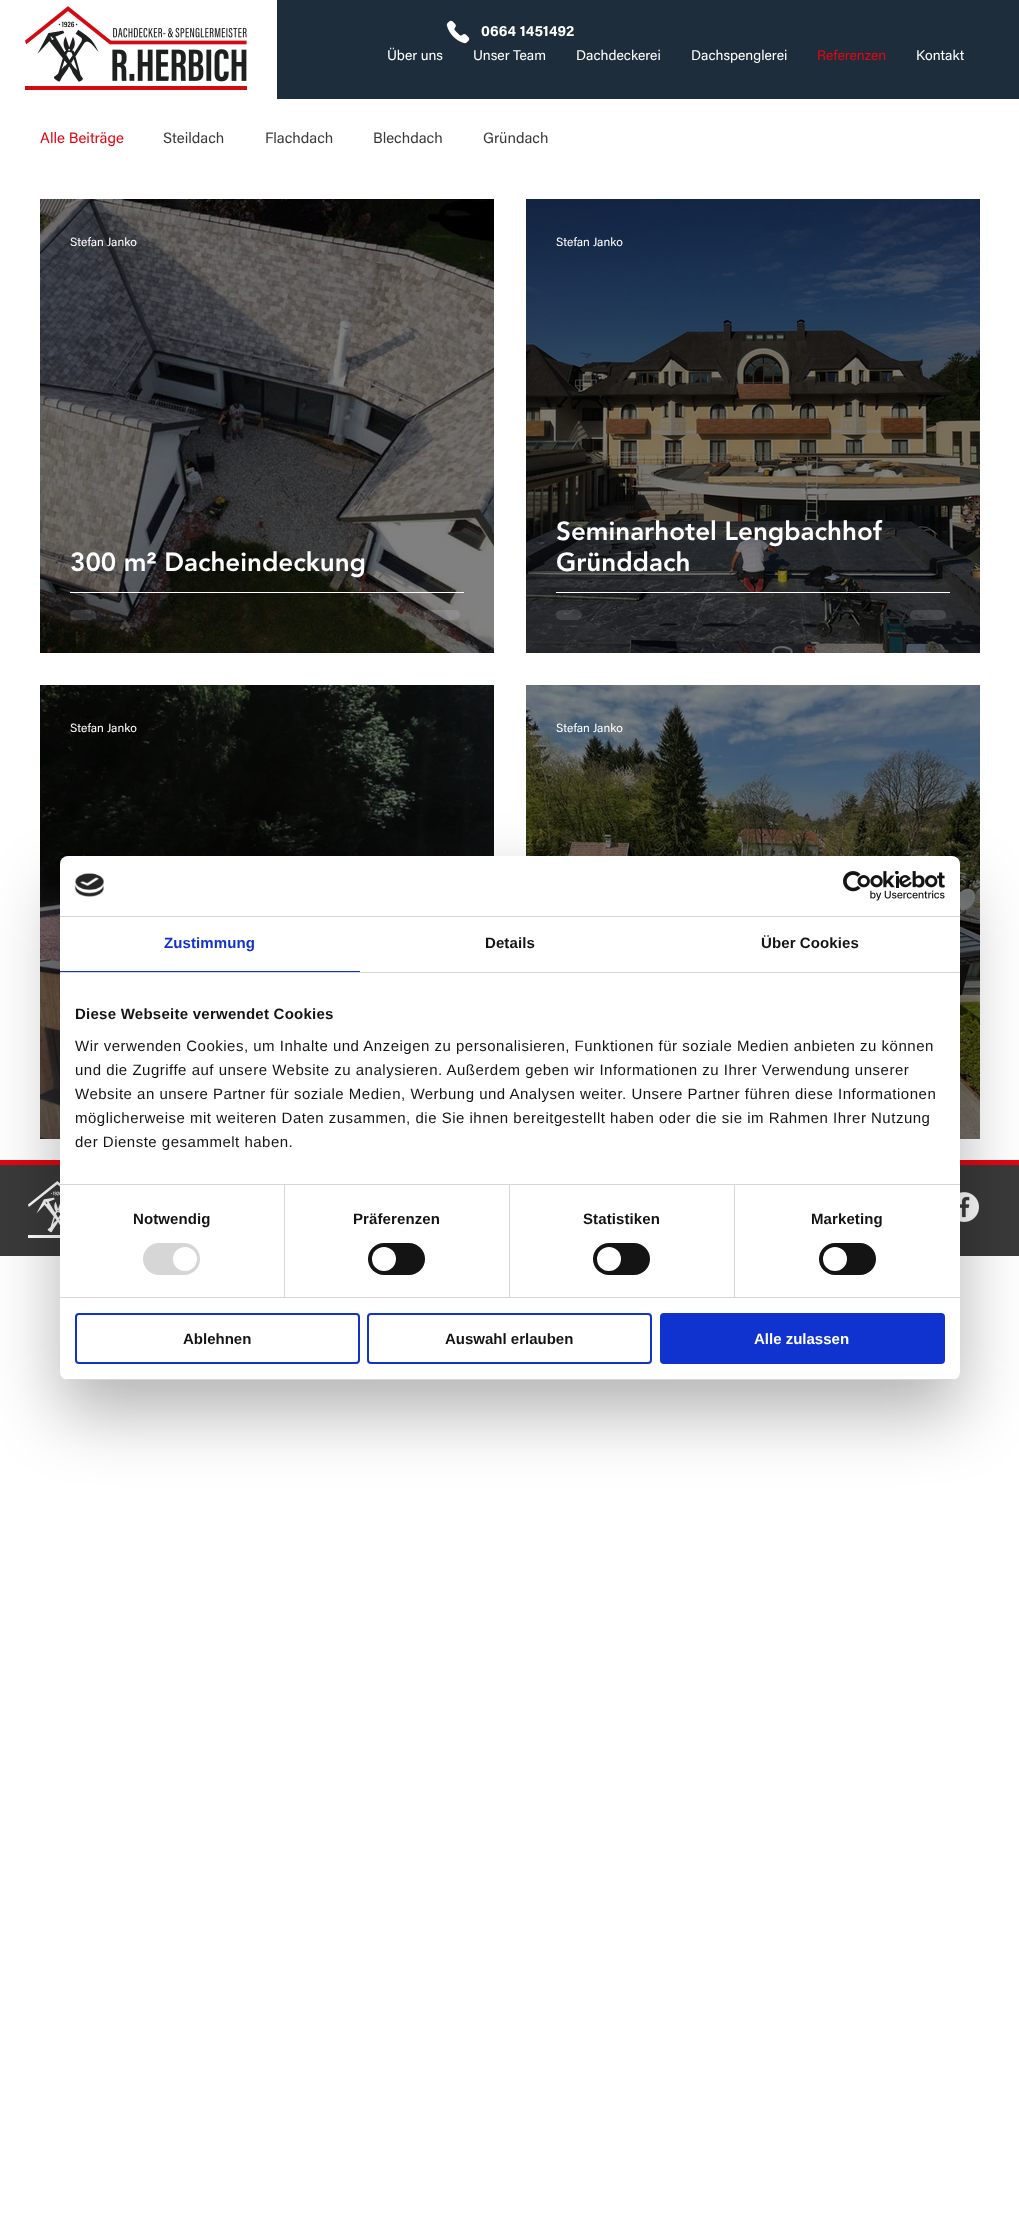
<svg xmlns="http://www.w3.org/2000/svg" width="1019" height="2235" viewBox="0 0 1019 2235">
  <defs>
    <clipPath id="clip1"><rect x="60" y="856" width="900" height="524" rx="8"/></clipPath>
  </defs>
  <rect width="100%" height="100%" fill="#fff"/>
  <image x="25" y="6" width="222" height="84" href="img/1.png"/>
  <path d="M277 0h742v99H277z" fill="#1e2d3b"/>
  <image x="446" y="20" width="24" height="24" href="img/2.png"/>
  <image x="40" y="199" width="454" height="454" href="img/3.png"/>
  <path d="M70 592h394v1H70z" fill="#fff"/>
  <rect x="70" y="610" width="26" height="10" rx="5" fill="#ffffff1f"/>
  <rect x="424" y="610" width="36" height="10" rx="5" fill="#ffffff1f"/>
  <image x="526" y="199" width="454" height="454" href="img/4.png"/>
  <path d="M556 592h394v1H556z" fill="#fff"/>
  <rect x="556" y="610" width="26" height="10" rx="5" fill="#ffffff1f"/>
  <rect x="910" y="610" width="36" height="10" rx="5" fill="#ffffff1f"/>
  <image x="40" y="685" width="454" height="454" href="img/5.png"/>
  <image x="526" y="685" width="454" height="454" href="img/6.png"/>
  <path d="M0 1165h1019v91H0z" fill="#3b3a3a"/>
  <path d="M0 1160h1019v5H0z" fill="#e30613"/>
  <image x="28" y="1181" width="32" height="57" href="img/7.png"/>
  <image x="960" y="1192" width="19" height="30" href="img/8.png"/>
  <rect x="60" y="888" width="900" height="524" rx="8" fill="#0000004d" filter="blur(34px)"/>
  <rect x="60" y="856" width="900" height="524" rx="8" fill="#fff"/>
  <path d="M60 916h900v1H60z" fill="#d6d6d6"/>
  <image x="74" y="873" width="30" height="24" href="img/9.png"/>
  <image x="843" y="871" width="102" height="30" href="img/10.png"/>
  <path d="M60 972h900v1H60z" fill="#d6d6d6"/>
  <path d="M60 971h300v1H60z" fill="#1032cf"/>
  <path d="M60 1184h900v1H60z" fill="#d6d6d6"/>
  <path d="M60 1297h900v1H60z" fill="#d6d6d6"/>
  <path d="M284 1185h1v112H284z" fill="#d6d6d6"/>
  <rect x="143" y="1243" width="57" height="32" rx="16" fill="#d6d6d6"/>
  <circle cx="185" cy="1259" r="12" fill="#fff"/>
  <path d="M509 1185h1v112H509z" fill="#d6d6d6"/>
  <rect x="368" y="1243" width="57" height="32" rx="16" fill="#141414"/>
  <circle cx="384" cy="1259" r="12" fill="#fff"/>
  <path d="M734 1185h1v112H734z" fill="#d6d6d6"/>
  <rect x="593" y="1243" width="57" height="32" rx="16" fill="#141414"/>
  <circle cx="609" cy="1259" r="12" fill="#fff"/>
  <rect x="819" y="1243" width="57" height="32" rx="16" fill="#141414"/>
  <circle cx="835" cy="1259" r="12" fill="#fff"/>
  <g clip-path="url(#clip1)">
    <path d="M60 1379h900v1H60z" fill="#d6d6d6"/>
  </g>
  <rect x="76" y="1314" width="283" height="49" rx="3" fill="none" stroke="#1032cf" stroke-width="2"/>
  <rect x="368" y="1314" width="283" height="49" rx="3" fill="none" stroke="#1032cf" stroke-width="2"/>
  <rect x="661" y="1314" width="283" height="49" rx="3" fill="#1032cf" stroke="#1032cf" stroke-width="2"/>
  <text x="481" y="36" font-family="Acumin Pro" font-size="15" font-weight="bold" fill="#fff">0664 1451492</text>
  <g font-family="Acumin Pro" font-size="14" fill="#fff">
    <text x="387" y="60">Über uns</text>
    <text x="473" y="60">Unser Team</text>
    <text x="576" y="60">Dachdeckerei</text>
    <text x="691" y="60">Dachspenglerei</text>
  </g>
  <text x="817" y="60" font-family="Acumin Pro" font-size="14" fill="#e30613">Referenzen</text>
  <text x="916" y="60" font-family="Acumin Pro" font-size="14" fill="#fff">Kontakt</text>
  <text x="40" y="143" font-family="Acumin Pro" font-size="15" fill="#e30613">Alle Beiträge</text>
  <g font-family="Acumin Pro" font-size="15" fill="#3b3a3a">
    <text x="163" y="143">Steildach</text>
    <text x="265" y="143">Flachdach</text>
    <text x="373" y="143">Blechdach</text>
    <text x="483" y="143">Gründach</text>
  </g>
  <text x="70" y="246" font-family="Acumin Pro" font-size="12" fill="#fff">Stefan Janko</text>
  <text x="70" y="571" font-family="'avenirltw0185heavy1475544'" font-size="26" font-weight="900" fill="#fff">300 m² Dacheindeckung</text>
  <text x="556" y="246" font-family="Acumin Pro" font-size="12" fill="#fff">Stefan Janko</text>
  <g font-family="'avenirltw0185heavy1475544'" font-size="26" font-weight="900" fill="#fff">
    <text x="556" y="540">Seminarhotel Lengbachhof</text>
    <text x="556" y="571">Gründdach</text>
  </g>
  <g font-family="Acumin Pro" font-size="12" fill="#fff">
    <text x="70" y="732">Stefan Janko</text>
    <text x="556" y="732">Stefan Janko</text>
  </g>
  <text x="164" y="948" font-family="Liberation Sans" font-size="15" font-weight="bold" letter-spacing="0.1" fill="#1032cf">Zustimmung</text>
  <g font-family="Liberation Sans" font-size="15" font-weight="bold" letter-spacing="0.1" fill="#141414">
    <text x="485" y="948">Details</text>
    <text x="761" y="948">Über Cookies</text>
  </g>
  <text x="75" y="1019" font-family="Liberation Sans" font-size="15" font-weight="bold" letter-spacing="0.25" fill="#141414">Diese Webseite verwendet Cookies</text>
  <g font-family="Liberation Sans" font-size="15" letter-spacing="0.5" fill="#141414">
    <text x="75" y="1051">Wir verwenden Cookies, um Inhalte und Anzeigen zu personalisieren, Funktionen für soziale Medien anbieten zu können</text>
    <text x="75" y="1075">und die Zugriffe auf unsere Website zu analysieren. Außerdem geben wir Informationen zu Ihrer Verwendung unserer</text>
    <text x="75" y="1099">Website an unsere Partner für soziale Medien, Werbung und Analysen weiter. Unsere Partner führen diese Informationen</text>
    <text x="75" y="1123">möglicherweise mit weiteren Daten zusammen, die Sie ihnen bereitgestellt haben oder die sie im Rahmen Ihrer Nutzung</text>
    <text x="75" y="1147">der Dienste gesammelt haben.</text>
  </g>
  <g font-family="Liberation Sans" font-size="15" font-weight="bold" letter-spacing="0.1" fill="#141414">
    <text x="133" y="1224">Notwendig</text>
    <text x="353" y="1224">Präferenzen</text>
    <text x="583" y="1224">Statistiken</text>
    <text x="811" y="1224">Marketing</text>
  </g>
  <g font-family="Liberation Sans" font-size="15" font-weight="bold" fill="#141414">
    <text x="183" y="1344">Ablehnen</text>
    <text x="445" y="1344">Auswahl erlauben</text>
  </g>
  <text x="754" y="1344" font-family="Liberation Sans" font-size="15" font-weight="bold" fill="#fff">Alle zulassen</text>
</svg>
